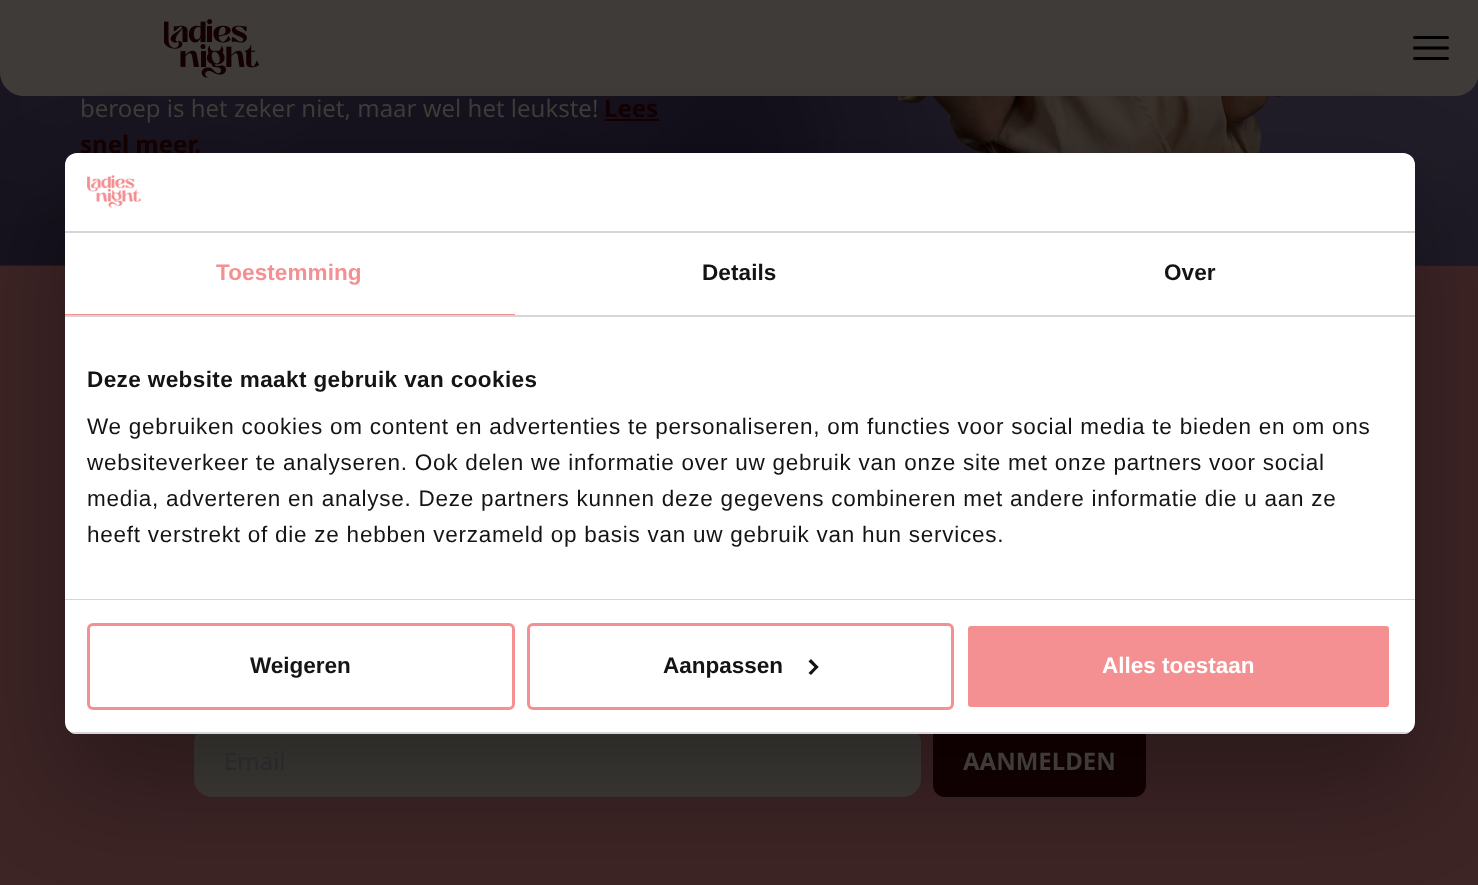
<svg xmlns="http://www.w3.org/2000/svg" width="1478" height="885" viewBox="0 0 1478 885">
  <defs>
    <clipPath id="clip1"><rect x="65" y="153" width="1350" height="581" rx="12"/></clipPath>
  </defs>
  <rect width="100%" height="100%" fill="#201c28"/>
  <image x="0" y="72" width="1478" height="193" href="img/2.png"/>
  <path d="M0 0H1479V72C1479 85.5 1468.5 96 1455 96H24C10.5 96 0 85.5 0 72Z" fill="#3e3b38"/>
  <image x="164" y="19" width="95" height="59" href="img/1.png"/>
  <path d="M1414.5 37.5H1447.5M1414.5 48H1447.5M1414.5 58.5H1447.5" fill="none" stroke="#000" stroke-width="3" stroke-linecap="round" stroke-linejoin="round"/>
  <path d="M605 119h54v2H605z" fill="#130102"/>
  <path d="M0 266h1478v619H0z" fill="#3d2425"/>
  <rect x="194" y="725" width="727" height="72" rx="18" fill="#3e3b38"/>
  <rect x="933" y="725" width="213" height="72" rx="12" fill="#130102"/>
  <rect x="65" y="201" width="1350" height="581" rx="12" fill="#0000004d" filter="blur(51px)"/>
  <text x="80" y="117" font-family="Noto Sans" font-size="24" fill="#3e3b38">beroep is het zeker niet, maar wel het leukste!</text>
  <g font-family="Noto Sans" font-size="24" font-weight="bold" fill="#130102">
    <text x="604" y="117">Lees</text>
    <text x="80" y="153">snel meer.</text>
  </g>
  <rect x="65" y="153" width="1350" height="581" rx="12" fill="#fff"/>
  <path d="M65 231h1350v2H65z" fill="#d6d6d6"/>
  <image x="87" y="174" width="55" height="34" href="img/3.png"/>
  <path d="M65 315h1350v2H65z" fill="#d6d6d6"/>
  <path d="M65 314h450v1H65z" fill="#f49092"/>
  <text x="216" y="280" font-family="Liberation Sans" font-size="22.5" font-weight="bold" letter-spacing="0.1" fill="#f49092">Toestemming</text>
  <g font-family="Liberation Sans" font-size="22.5" font-weight="bold" letter-spacing="0.1" fill="#141414">
    <text x="702" y="280">Details</text>
    <text x="1164" y="280">Over</text>
  </g>
  <path d="M65 599h1350v1H65z" fill="#d6d6d6"/>
  <text x="87" y="387" font-family="Liberation Sans" font-size="22.5" font-weight="bold" letter-spacing="0.4" fill="#141414">Deze website maakt gebruik van cookies</text>
  <g font-family="Liberation Sans" font-size="22.5" letter-spacing="0.75" fill="#141414">
    <text x="87" y="434">We gebruiken cookies om content en advertenties te personaliseren, om functies voor social media te bieden en om ons</text>
    <text x="87" y="470">websiteverkeer te analyseren. Ook delen we informatie over uw gebruik van onze site met onze partners voor social</text>
    <text x="87" y="506">media, adverteren en analyse. Deze partners kunnen deze gegevens combineren met andere informatie die u aan ze</text>
    <text x="87" y="542">heeft verstrekt of die ze hebben verzameld op basis van uw gebruik van hun services.</text>
  </g>
  <g clip-path="url(#clip1)">
    <path d="M65 732h1350v2H65z" fill="#d6d6d6"/>
  </g>
  <rect x="88.5" y="624.5" width="425" height="84" rx="4.5" fill="none" stroke="#f49092" stroke-width="3"/>
  <text x="250" y="673" font-family="Liberation Sans" font-size="22.5" font-weight="bold" fill="#141414">Weigeren</text>
  <rect x="528.5" y="624.5" width="424" height="84" rx="4.5" fill="none" stroke="#f49092" stroke-width="3"/>
  <text x="663" y="673" font-family="Liberation Sans" font-size="22.5" font-weight="bold" fill="#141414">Aanpassen</text>
  <path d="M811 659L818.5 667L816.5 669L808.5 661.5Z" fill="#141414"/>
  <path d="M816.5 665L818.5 667L811 675L808.5 673Z" fill="#141414"/>
  <rect x="966.5" y="624.5" width="424" height="84" rx="4.5" fill="#f49092" stroke="#fff" stroke-width="3"/>
  <text x="1102" y="673" font-family="Liberation Sans" font-size="22.5" font-weight="bold" fill="#fff">Alles toestaan</text>
  <text x="224" y="770" font-family="Noto Sans" font-size="24" fill="#27292c">Email</text>
  <text x="963" y="770" font-family="Noto Sans" font-size="24" font-weight="bold" fill="#3e3b38">AANMELDEN</text>
</svg>
